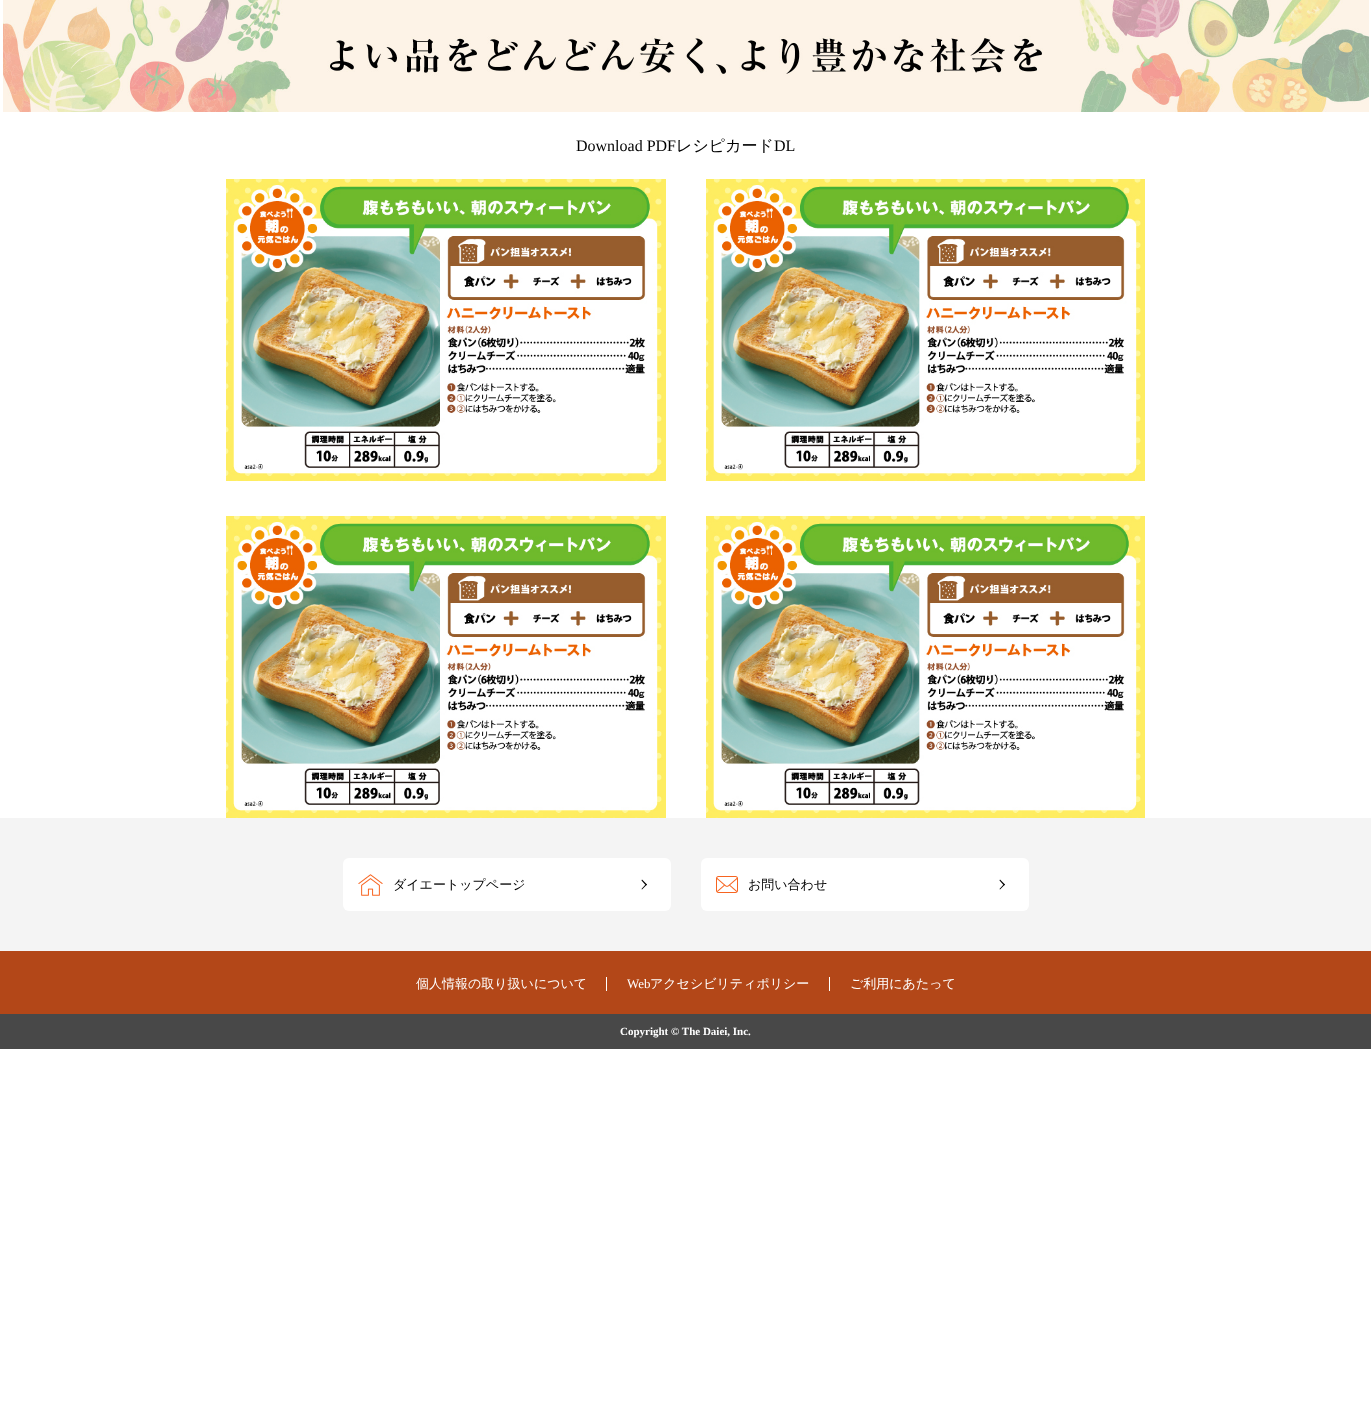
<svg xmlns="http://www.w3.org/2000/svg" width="1371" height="1424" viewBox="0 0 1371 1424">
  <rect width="100%" height="100%" fill="#fff"/>
  <image x="3" y="0" width="1366" height="112" href="img/1.png"/>
  <image x="226" y="179" width="440" height="302" href="img/2.png"/>
  <image x="706" y="179" width="439" height="302" href="img/3.png"/>
  <image x="226" y="516" width="440" height="302" href="img/2.png"/>
  <image x="706" y="516" width="439" height="302" href="img/3.png"/>
  <path d="M0 818h1371v133H0z" fill="#f4f4f4"/>
  <rect x="343" y="858" width="328" height="53" rx="6" fill="#fff"/>
  <image x="358" y="874" width="25" height="22" href="img/4.png"/>
  <path d="M641.5 880.5L642 879.5L647 884.5L646 885.5Z" fill="#000"/>
  <path d="M641.5 889L646 884L647 884.5L642 889.5Z" fill="#000"/>
  <rect x="701" y="858" width="328" height="53" rx="6" fill="#fff"/>
  <image x="716" y="876" width="22" height="17" href="img/5.png"/>
  <path d="M999.5 880.5L1000 879.5L1005 884.5L1004 885.5Z" fill="#000"/>
  <path d="M999.5 889L1004 884L1005 884.5L1000 889.5Z" fill="#000"/>
  <path d="M0 951h1371v63H0z" fill="#b34718"/>
  <path d="M606 977h1v14H606z" fill="#fff"/>
  <path d="M829 977h1v14H829z" fill="#fff"/>
  <path d="M0 1014h1371v35H0z" fill="#484848"/>
  <text x="576" y="151" font-family="Liberation Serif" font-size="16" fill="#000">Download PDF</text>
  <text x="676" y="151" font-family="WenQuanYi Zen Hei" font-size="16" font-weight="500" fill="#000">レシピカード</text>
  <text x="774" y="151" font-family="Liberation Serif" font-size="16" fill="#000">DL</text>
  <g font-family="WenQuanYi Zen Hei" font-size="13" font-weight="500" fill="#000">
    <text x="393" y="889">ダイエートップページ</text>
    <text x="748" y="889">お問い合わせ</text>
  </g>
  <text x="416" y="988" font-family="WenQuanYi Zen Hei" font-size="13" font-weight="500" fill="#fff">個人情報の取り扱いについて</text>
  <text x="627" y="988" font-family="Liberation Serif" font-size="13" fill="#fff">Web</text>
  <g font-family="WenQuanYi Zen Hei" font-size="13" font-weight="500" fill="#fff">
    <text x="650" y="988">アクセシビリティポリシー</text>
    <text x="850" y="988">ご利用にあたって</text>
  </g>
  <text x="620" y="1035" font-family="Liberation Serif" font-size="11" font-weight="bold" fill="#fff">Copyright © The Daiei, Inc.</text>
</svg>
